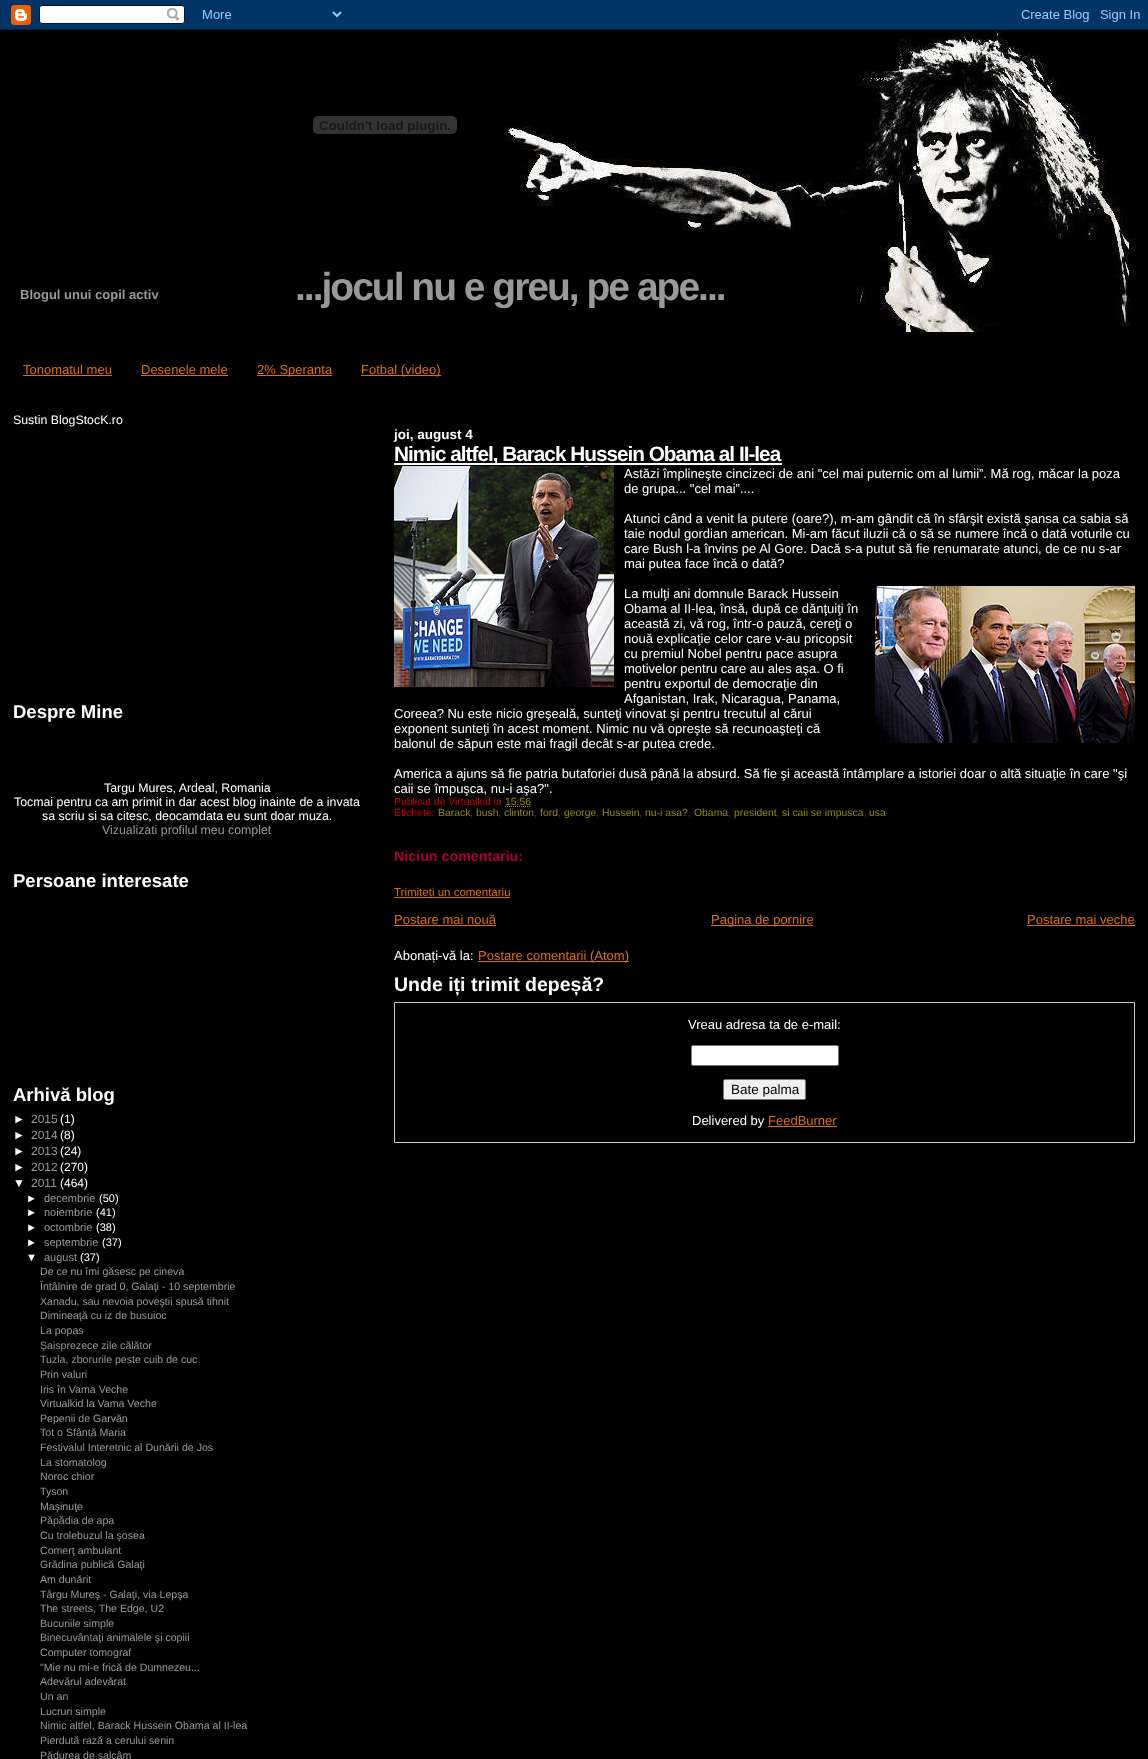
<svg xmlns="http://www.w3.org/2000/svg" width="1148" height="1759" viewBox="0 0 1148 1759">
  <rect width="100%" height="100%" fill="#000"/>
  <image x="0" y="0" width="1148" height="30" href="img/1.png"/>
  <image x="313" y="116" width="144" height="18" href="img/2.png"/>
  <image x="504" y="30" width="632" height="304" href="img/3.png"/>
  <path d="M23 375h89v1H23z" fill="#de7008"/>
  <path d="M141 375h87v1H141z" fill="#de7008"/>
  <path d="M257 375h75v1H257z" fill="#de7008"/>
  <path d="M361 375h80v1H361z" fill="#de7008"/>
  <path d="M394 463h388v2H394z" fill="#fff"/>
  <image x="394" y="466" width="220" height="221" href="img/4.png"/>
  <image x="875" y="586" width="260" height="157" href="img/5.png"/>
  <path d="M505 806.5H531" fill="none" stroke="#968a0a" stroke-dasharray="1 1"/>
  <path d="M394 897h116v1H394z" fill="#de7008"/>
  <path d="M394 925h102v1H394z" fill="#de7008"/>
  <path d="M711 925h102v1H711z" fill="#de7008"/>
  <path d="M1027 925h108v1H1027z" fill="#de7008"/>
  <path d="M478 961h151v1H478z" fill="#de7008"/>
  <path d="M394.5 1002.5h740v140H394.5z" fill="none" stroke="#ccc"/>
  <rect x="691.5" y="1045.5" width="147" height="20" rx="1.5" fill="#fff" stroke="#767676"/>
  <rect x="723.5" y="1079.5" width="82" height="20" rx="1.5" fill="#efefef" stroke="#767676"/>
  <path d="M768 1126h69v1H768z" fill="#de7008"/>
  <text x="20" y="299" font-family="Liberation Sans" font-size="13" font-weight="bold" fill="#999">Blogul unui copil activ</text>
  <text x="295" y="300" font-family="Liberation Sans" font-size="39" font-weight="bold" letter-spacing="-2" fill="#999">...jocul nu e greu, pe ape...</text>
  <g font-family="Liberation Sans" font-size="13" fill="#de7008">
    <text x="23" y="374">Tonomatul meu</text>
    <text x="141" y="374">Desenele mele</text>
    <text x="257" y="374">2% Speranta</text>
    <text x="361" y="374">Fotbal (video)</text>
  </g>
  <text x="13" y="424" font-family="Liberation Sans" font-size="12.35" fill="#fff">Sustin BlogStocK.ro</text>
  <text x="13" y="718" font-family="Liberation Sans" font-size="18.5" font-weight="bold" fill="#fff">Despre Mine</text>
  <g font-family="Liberation Sans" font-size="12.35" fill="#fff">
    <text x="104" y="792">Targu Mures, Ardeal, Romania</text>
    <text x="14" y="806">Tocmai pentru ca am primit in dar acest blog inainte de a invata</text>
    <text x="42" y="820">sa scriu si sa citesc, deocamdata eu sunt doar muza.</text>
  </g>
  <text x="102" y="834" font-family="Liberation Sans" font-size="12.35" fill="#999">Vizualizati profilul meu complet</text>
  <g font-family="Liberation Sans" font-size="18.5" font-weight="bold" fill="#fff">
    <text x="13" y="887">Persoane interesate</text>
    <text x="13" y="1101">Arhivă blog</text>
  </g>
  <text x="13" y="1123" font-family="Liberation Sans" font-size="12" fill="#fff">►</text>
  <text x="31" y="1123" font-family="Liberation Sans" font-size="12" fill="#999">2015</text>
  <g font-family="Liberation Sans" font-size="12" fill="#fff">
    <text x="60" y="1123">(1)</text>
    <text x="13" y="1139">►</text>
  </g>
  <text x="31" y="1139" font-family="Liberation Sans" font-size="12" fill="#999">2014</text>
  <g font-family="Liberation Sans" font-size="12" fill="#fff">
    <text x="60" y="1139">(8)</text>
    <text x="13" y="1155">►</text>
  </g>
  <text x="31" y="1155" font-family="Liberation Sans" font-size="12" fill="#999">2013</text>
  <g font-family="Liberation Sans" font-size="12" fill="#fff">
    <text x="60" y="1155">(24)</text>
    <text x="13" y="1171">►</text>
  </g>
  <text x="31" y="1171" font-family="Liberation Sans" font-size="12" fill="#999">2012</text>
  <g font-family="Liberation Sans" font-size="12" fill="#fff">
    <text x="60" y="1171">(270)</text>
    <text x="13" y="1187">▼</text>
  </g>
  <text x="31" y="1187" font-family="Liberation Sans" font-size="12" fill="#999">2011</text>
  <text x="60" y="1187" font-family="Liberation Sans" font-size="12" fill="#fff">(464)</text>
  <text x="26" y="1202" font-family="Liberation Sans" font-size="11" fill="#fff">►</text>
  <text x="44" y="1202" font-family="Liberation Sans" font-size="11" fill="#999">decembrie</text>
  <g font-family="Liberation Sans" font-size="11" fill="#fff">
    <text x="99" y="1202">(50)</text>
    <text x="26" y="1216">►</text>
  </g>
  <text x="44" y="1216" font-family="Liberation Sans" font-size="11" fill="#999">noiembrie</text>
  <g font-family="Liberation Sans" font-size="11" fill="#fff">
    <text x="96" y="1216">(41)</text>
    <text x="26" y="1231">►</text>
  </g>
  <text x="44" y="1231" font-family="Liberation Sans" font-size="11" fill="#999">octombrie</text>
  <g font-family="Liberation Sans" font-size="11" fill="#fff">
    <text x="96" y="1231">(38)</text>
    <text x="26" y="1246">►</text>
  </g>
  <text x="44" y="1246" font-family="Liberation Sans" font-size="11" fill="#999">septembrie</text>
  <g font-family="Liberation Sans" font-size="11" fill="#fff">
    <text x="102" y="1246">(37)</text>
    <text x="26" y="1261">▼</text>
  </g>
  <text x="44" y="1261" font-family="Liberation Sans" font-size="11" fill="#999">august</text>
  <text x="80" y="1261" font-family="Liberation Sans" font-size="11" fill="#fff">(37)</text>
  <g font-family="Liberation Sans" font-size="10.6" fill="#999">
    <text x="40" y="1275">De ce nu îmi găsesc pe cineva</text>
    <text x="40" y="1290">Întâlnire de grad 0, Galaţi - 10 septembrie</text>
    <text x="40" y="1305">Xanadu, sau nevoia poveştii spusă tihnit</text>
    <text x="40" y="1319">Dimineaţă cu iz de busuioc</text>
    <text x="40" y="1334">La popas</text>
    <text x="40" y="1349">Şaisprezece zile călător</text>
    <text x="40" y="1363">Tuzla, zborurile peste cuib de cuc</text>
    <text x="40" y="1378">Prin valuri</text>
    <text x="40" y="1393">Iris în Vama Veche</text>
    <text x="40" y="1407">Virtualkid la Vama Veche</text>
    <text x="40" y="1422">Pepenii de Garvăn</text>
    <text x="40" y="1436">Tot o Sfântă Maria</text>
    <text x="40" y="1451">Festivalul Interetnic al Dunării de Jos</text>
    <text x="40" y="1466">La stomatolog</text>
    <text x="40" y="1480">Noroc chior</text>
    <text x="40" y="1495">Tyson</text>
    <text x="40" y="1510">Maşinuţe</text>
    <text x="40" y="1524">Păpădia de apa</text>
    <text x="40" y="1539">Cu trolebuzul la şosea</text>
    <text x="40" y="1554">Comerţ ambulant</text>
    <text x="40" y="1568">Grădina publică Galaţi</text>
    <text x="40" y="1583">Am dunărit</text>
    <text x="40" y="1598">Târgu Mureş - Galaţi, via Lepşa</text>
    <text x="40" y="1612">The streets, The Edge, U2</text>
    <text x="40" y="1627">Bucuriile simple</text>
    <text x="40" y="1641">Binecuvântaţi animalele şi copiii</text>
    <text x="40" y="1656">Computer tomograf</text>
    <text x="40" y="1671">"Mie nu mi-e frică de Dumnezeu...</text>
    <text x="40" y="1685">Adevărul adevărat</text>
    <text x="40" y="1700">Un an</text>
    <text x="40" y="1715">Lucruri simple</text>
    <text x="40" y="1729">Nimic altfel, Barack Hussein Obama al II-lea</text>
    <text x="40" y="1744">Pierdută rază a cerului senin</text>
    <text x="40" y="1759">Pădurea de salcâm</text>
  </g>
  <text x="394" y="439" font-family="Liberation Sans" font-size="13.5" font-weight="bold" fill="#fff">joi, august 4</text>
  <text x="394" y="461" font-family="Liberation Sans" font-size="20.75" font-weight="bold" letter-spacing="-1" fill="#fff">Nimic altfel, Barack Hussein Obama al II-lea</text>
  <g font-family="Liberation Sans" font-size="13" fill="#fff">
    <text x="624" y="478">Astăzi împlineşte cincizeci de ani "cel mai puternic om al lumii”. Mă rog, măcar la poza</text>
    <text x="624" y="493">de grupa... "cel mai”....</text>
    <text x="624" y="523">Atunci când a venit la putere (oare?), m-am gândit că în sfârşit există şansa ca sabia să</text>
    <text x="624" y="538">taie nodul gordian american. Mi-am făcut iluzii că o să se numere încă o dată voturile cu</text>
    <text x="624" y="553">care Bush l-a învins pe Al Gore. Dacă s-a putut să fie renumarate atunci, de ce nu s-ar</text>
    <text x="624" y="568">mai putea face încă o dată?</text>
    <text x="624" y="598">La mulţi ani domnule Barack Hussein</text>
    <text x="624" y="613">Obama al II-lea, însă, după ce dănţuiţi în</text>
    <text x="624" y="628">această zi, vă rog, într-o pauză, cereţi o</text>
    <text x="624" y="643">nouă explicaţie celor care v-au pricopsit</text>
    <text x="624" y="658">cu premiul Nobel pentru pace asupra</text>
    <text x="624" y="673">motivelor pentru care au ales aşa. O fi</text>
    <text x="624" y="688">pentru exportul de democraţie din</text>
    <text x="624" y="703">Afganistan, Irak, Nicaragua, Panama,</text>
    <text x="394" y="718">Coreea? Nu este nicio greşeală, sunteţi vinovat şi pentru trecutul al cărui</text>
    <text x="394" y="733">exponent sunteţi în acest moment. Nimic nu vă opreşte să recunoaşteţi că</text>
    <text x="394" y="748">balonul de săpun este mai fragil decât s-ar putea crede.</text>
    <text x="394" y="778">America a ajuns să fie patria butaforiei dusă până la absurd. Să fie şi această întâmplare a istoriei doar o altă situaţie în care "şi</text>
    <text x="394" y="793">caii se împuşca, nu-i aşa?".</text>
  </g>
  <text x="394" y="805" font-family="Liberation Sans" font-size="10.4" fill="#c00">Publicat de Virtualkid la</text>
  <text x="505" y="805" font-family="Liberation Sans" font-size="10.4" fill="#968a0a">15:56</text>
  <text x="394" y="816" font-family="Liberation Sans" font-size="10.4" fill="#c00">Etichete:</text>
  <text x="438" y="816" font-family="Liberation Sans" font-size="10.4" fill="#968a0a">Barack</text>
  <text x="470" y="816" font-family="Liberation Sans" font-size="10.4" fill="#c00">,</text>
  <text x="476" y="816" font-family="Liberation Sans" font-size="10.4" fill="#968a0a">bush</text>
  <text x="498" y="816" font-family="Liberation Sans" font-size="10.4" fill="#c00">,</text>
  <text x="504" y="816" font-family="Liberation Sans" font-size="10.4" fill="#968a0a">clinton</text>
  <text x="534" y="816" font-family="Liberation Sans" font-size="10.4" fill="#c00">,</text>
  <text x="540" y="816" font-family="Liberation Sans" font-size="10.4" fill="#968a0a">ford</text>
  <text x="558" y="816" font-family="Liberation Sans" font-size="10.4" fill="#c00">,</text>
  <text x="564" y="816" font-family="Liberation Sans" font-size="10.4" fill="#968a0a">george</text>
  <text x="596" y="816" font-family="Liberation Sans" font-size="10.4" fill="#c00">,</text>
  <text x="602" y="816" font-family="Liberation Sans" font-size="10.4" fill="#968a0a">Hussein</text>
  <text x="639" y="816" font-family="Liberation Sans" font-size="10.4" fill="#c00">,</text>
  <text x="645" y="816" font-family="Liberation Sans" font-size="10.4" fill="#968a0a">nu-i asa?</text>
  <text x="688" y="816" font-family="Liberation Sans" font-size="10.4" fill="#c00">,</text>
  <text x="694" y="816" font-family="Liberation Sans" font-size="10.4" fill="#968a0a">Obama</text>
  <text x="728" y="816" font-family="Liberation Sans" font-size="10.4" fill="#c00">,</text>
  <text x="734" y="816" font-family="Liberation Sans" font-size="10.4" fill="#968a0a">president</text>
  <text x="776" y="816" font-family="Liberation Sans" font-size="10.4" fill="#c00">,</text>
  <text x="782" y="816" font-family="Liberation Sans" font-size="10.4" fill="#968a0a">si caii se impusca</text>
  <text x="864" y="816" font-family="Liberation Sans" font-size="10.4" fill="#c00">,</text>
  <text x="869" y="816" font-family="Liberation Sans" font-size="10.4" fill="#968a0a">usa</text>
  <text x="394" y="861" font-family="Liberation Sans" font-size="14.25" font-weight="bold" fill="#a03">Niciun comentariu:</text>
  <text x="394" y="896" font-family="Liberation Sans" font-size="11.5" fill="#de7008">Trimiteți un comentariu</text>
  <g font-family="Liberation Sans" font-size="13" fill="#de7008">
    <text x="394" y="924">Postare mai nouă</text>
    <text x="711" y="924">Pagina de pornire</text>
    <text x="1027" y="924">Postare mai veche</text>
  </g>
  <text x="394" y="960" font-family="Liberation Sans" font-size="13" fill="#fff">Abonați-vă la:</text>
  <text x="478" y="960" font-family="Liberation Sans" font-size="13" fill="#de7008">Postare comentarii (Atom)</text>
  <text x="394" y="991" font-family="Liberation Sans" font-size="19.5" font-weight="bold" fill="#fff">Unde iți trimit depeșă?</text>
  <text x="688" y="1029" font-family="Liberation Sans" font-size="13" fill="#fff">Vreau adresa ta de e-mail:</text>
  <text x="731" y="1094" font-family="Liberation Sans" font-size="13.5" fill="#000">Bate palma</text>
  <text x="692" y="1125" font-family="Liberation Sans" font-size="13" fill="#fff">Delivered by</text>
  <text x="768" y="1125" font-family="Liberation Sans" font-size="13" fill="#de7008">FeedBurner</text>
</svg>
